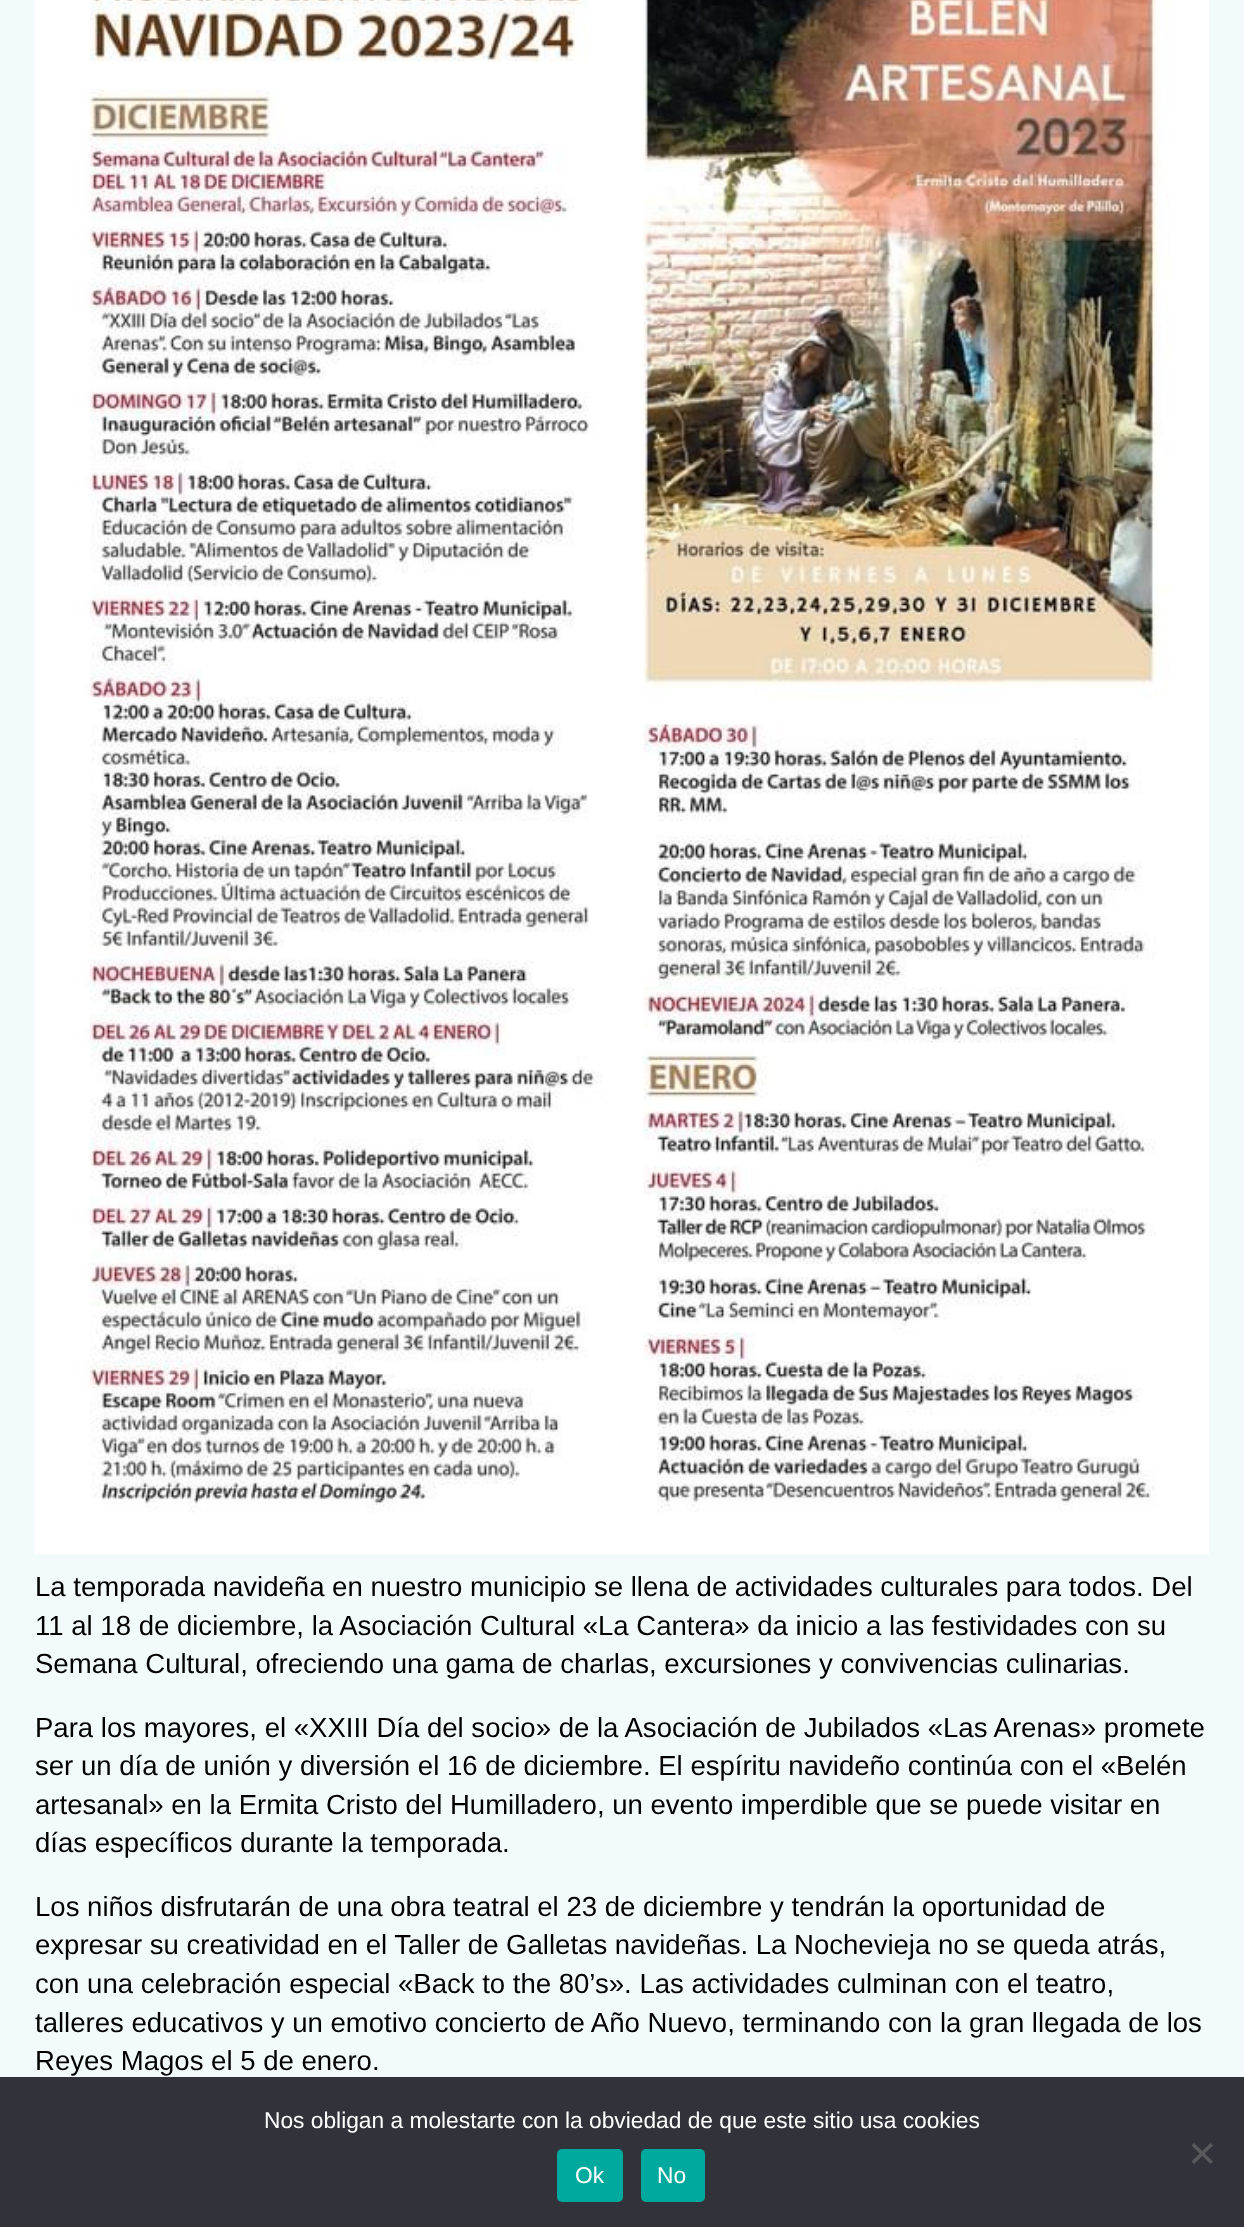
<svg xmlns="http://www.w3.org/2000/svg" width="1244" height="2227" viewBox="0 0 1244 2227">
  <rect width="100%" height="100%" fill="#f2fafc"/>
  <image x="35" y="0" width="1174" height="1554" href="img/1.png"/>
  <path d="M0 2077h1244v150H0z" fill="#32323a"/>
  <path d="M1210.5 2143L1213 2145.5L1194 2164L1191.5 2161.5Z" fill="#59595d"/>
  <path d="M1191.5 2145.5L1194 2143L1213 2161.5L1210.5 2164Z" fill="#59595d"/>
  <rect x="557" y="2149" width="66" height="53" rx="5" fill="#00a99d"/>
  <rect x="641" y="2149" width="64" height="53" rx="5" fill="#00a99d"/>
  <g font-family="Liberation Sans" font-size="27.55" fill="#000">
    <text x="35" y="1596">La temporada navideña en nuestro municipio se llena de actividades culturales para todos. Del</text>
    <text x="35" y="1635">11 al 18 de diciembre, la Asociación Cultural «La Cantera» da inicio a las festividades con su</text>
    <text x="35" y="1673">Semana Cultural, ofreciendo una gama de charlas, excursiones y convivencias culinarias.</text>
    <text x="35" y="1737">Para los mayores, el «XXIII Día del socio» de la Asociación de Jubilados «Las Arenas» promete</text>
    <text x="35" y="1775">ser un día de unión y diversión el 16 de diciembre. El espíritu navideño continúa con el «Belén</text>
    <text x="35" y="1814">artesanal» en la Ermita Cristo del Humilladero, un evento imperdible que se puede visitar en</text>
    <text x="35" y="1852">días específicos durante la temporada.</text>
    <text x="35" y="1916">Los niños disfrutarán de una obra teatral el 23 de diciembre y tendrán la oportunidad de</text>
    <text x="35" y="1954">expresar su creatividad en el Taller de Galletas navideñas. La Nochevieja no se queda atrás,</text>
    <text x="35" y="1993">con una celebración especial «Back to the 80’s». Las actividades culminan con el teatro,</text>
    <text x="35" y="2032">talleres educativos y un emotivo concierto de Año Nuevo, terminando con la gran llegada de los</text>
    <text x="35" y="2070">Reyes Magos el 5 de enero.</text>
  </g>
  <g font-family="Liberation Sans" font-size="22.75" fill="#fff">
    <text x="264" y="2128">Nos obligan a molestarte con la obviedad de que este sitio usa cookies</text>
    <text x="575" y="2183">Ok</text>
    <text x="657" y="2183">No</text>
  </g>
</svg>
